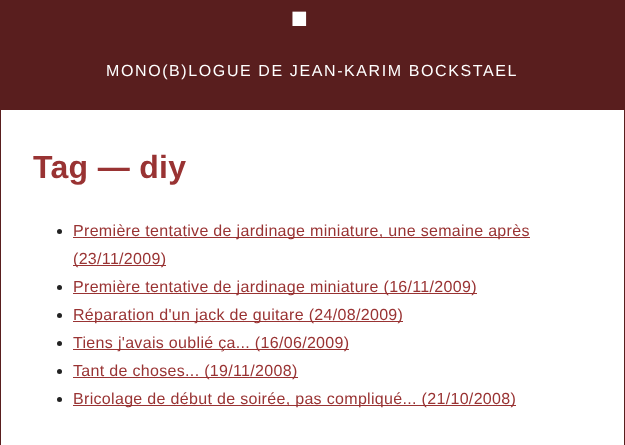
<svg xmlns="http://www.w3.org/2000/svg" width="625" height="445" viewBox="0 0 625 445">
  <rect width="100%" height="100%" fill="#591e1e"/>
  <path d="M1 110h623v335H1z" fill="#fff"/>
  <circle cx="59.5" cy="231.5" r="2.5" fill="#222"/>
  <path d="M73 237h457v1H73z" fill="#933"/>
  <path d="M73 265h93v1H73z" fill="#933"/>
  <circle cx="59.5" cy="287.5" r="2.5" fill="#222"/>
  <path d="M73 293h404v1H73z" fill="#933"/>
  <circle cx="59.5" cy="315.5" r="2.5" fill="#222"/>
  <path d="M73 321h330v1H73z" fill="#933"/>
  <circle cx="59.5" cy="343.5" r="2.5" fill="#222"/>
  <path d="M73 349h276v1H73z" fill="#933"/>
  <circle cx="59.5" cy="371.5" r="2.5" fill="#222"/>
  <path d="M73 377h225v1H73z" fill="#933"/>
  <circle cx="59.5" cy="399.5" r="2.5" fill="#222"/>
  <path d="M73 405h443v1H73z" fill="#933"/>
  <text x="286" y="26" font-family="Liberation Sans" font-size="96" font-weight="bold" letter-spacing="10" fill="#fff">.</text>
  <text x="106" y="76" font-family="Liberation Sans" font-size="16" letter-spacing="1.6" fill="#fff">MONO(B)LOGUE DE JEAN-KARIM BOCKSTAEL</text>
  <text x="33" y="178" font-family="Liberation Sans" font-size="32" font-weight="bold" letter-spacing="0.32" fill="#933">Tag — diy</text>
  <g font-family="Liberation Sans" font-size="16" letter-spacing="0.32" fill="#933">
    <text x="73" y="236">Première tentative de jardinage miniature, une semaine après</text>
    <text x="73" y="264">(23/11/2009)</text>
    <text x="73" y="292">Première tentative de jardinage miniature (16/11/2009)</text>
    <text x="73" y="320">Réparation d'un jack de guitare (24/08/2009)</text>
    <text x="73" y="348">Tiens j'avais oublié ça... (16/06/2009)</text>
    <text x="73" y="376">Tant de choses... (19/11/2008)</text>
    <text x="73" y="404">Bricolage de début de soirée, pas compliqué... (21/10/2008)</text>
  </g>
</svg>
